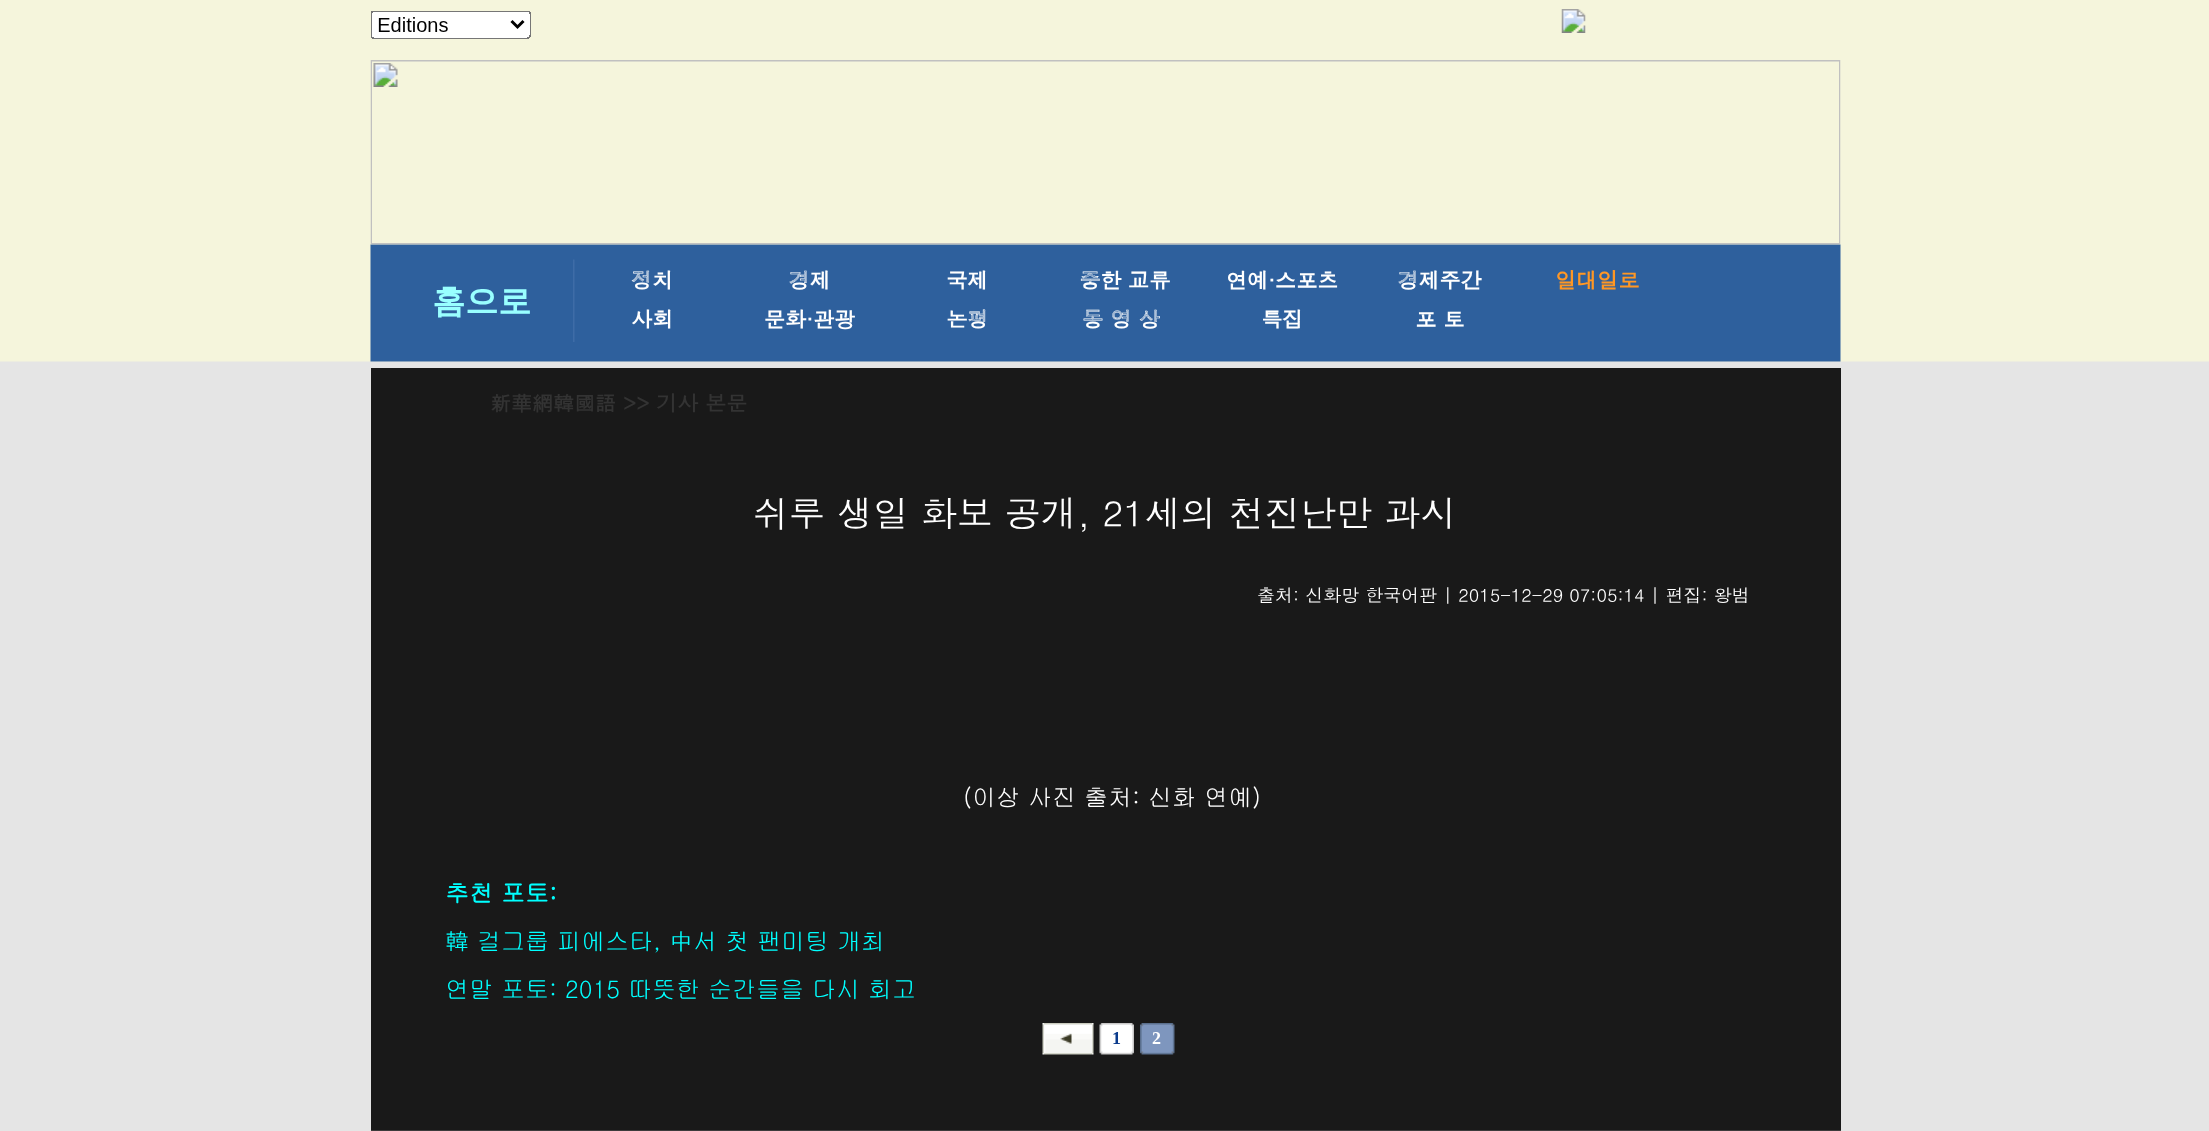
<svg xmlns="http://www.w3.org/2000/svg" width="2209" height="1131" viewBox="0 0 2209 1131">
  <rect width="100%" height="100%" fill="#e5e5e5"/>
  <image x="0" y="0" width="2209" height="362" href="img/1.png"/>
  <path d="M371 368h1470v762H371z" fill="#191919"/>
  <image x="1042" y="1023" width="52" height="32" href="img/2.png"/>
  <image x="1099" y="1023" width="35" height="32" href="img/3.png"/>
  <image x="1140" y="1023" width="35" height="32" href="img/4.png"/>
  <path d="M371 1130h1470v1H371z" fill="#3c3b3b"/>
  <text x="490" y="411" font-family="Dotum" font-size="21" font-weight="bold" fill="#333">新華網韓國語 &gt;&gt; 기사 본문</text>
  <text x="753" y="527" font-family="Dotum" font-size="36" fill="#fff">쉬루 생일 화보 공개, 21세의 천진난만 과시</text>
  <text x="1257" y="602" font-family="Dotum" font-size="18" fill="#fff">출처: 신화망 한국어판 | 2015-12-29 07:05:14 | 편집: 왕범</text>
  <text x="963" y="806" font-family="Gulim" font-size="24" fill="#fff">(이상 사진 출처: 신화 연예)</text>
  <text x="445" y="902" font-family="Gulim" font-size="24" font-weight="bold" fill="#0ff">추천 포토:</text>
  <g font-family="Gulim" font-size="24" fill="#0ff">
    <text x="445" y="950">韓 걸그룹 피에스타, 中서 첫 팬미팅 개최</text>
    <text x="445" y="998">연말 포토: 2015 따뜻한 순간들을 다시 회고</text>
  </g>
  <text x="1112" y="1044" font-family="Liberation Serif" font-size="18" font-weight="bold" fill="#0b3b8c">1</text>
  <text x="1152" y="1044" font-family="Liberation Serif" font-size="18" font-weight="bold" fill="#fff">2</text>
</svg>
